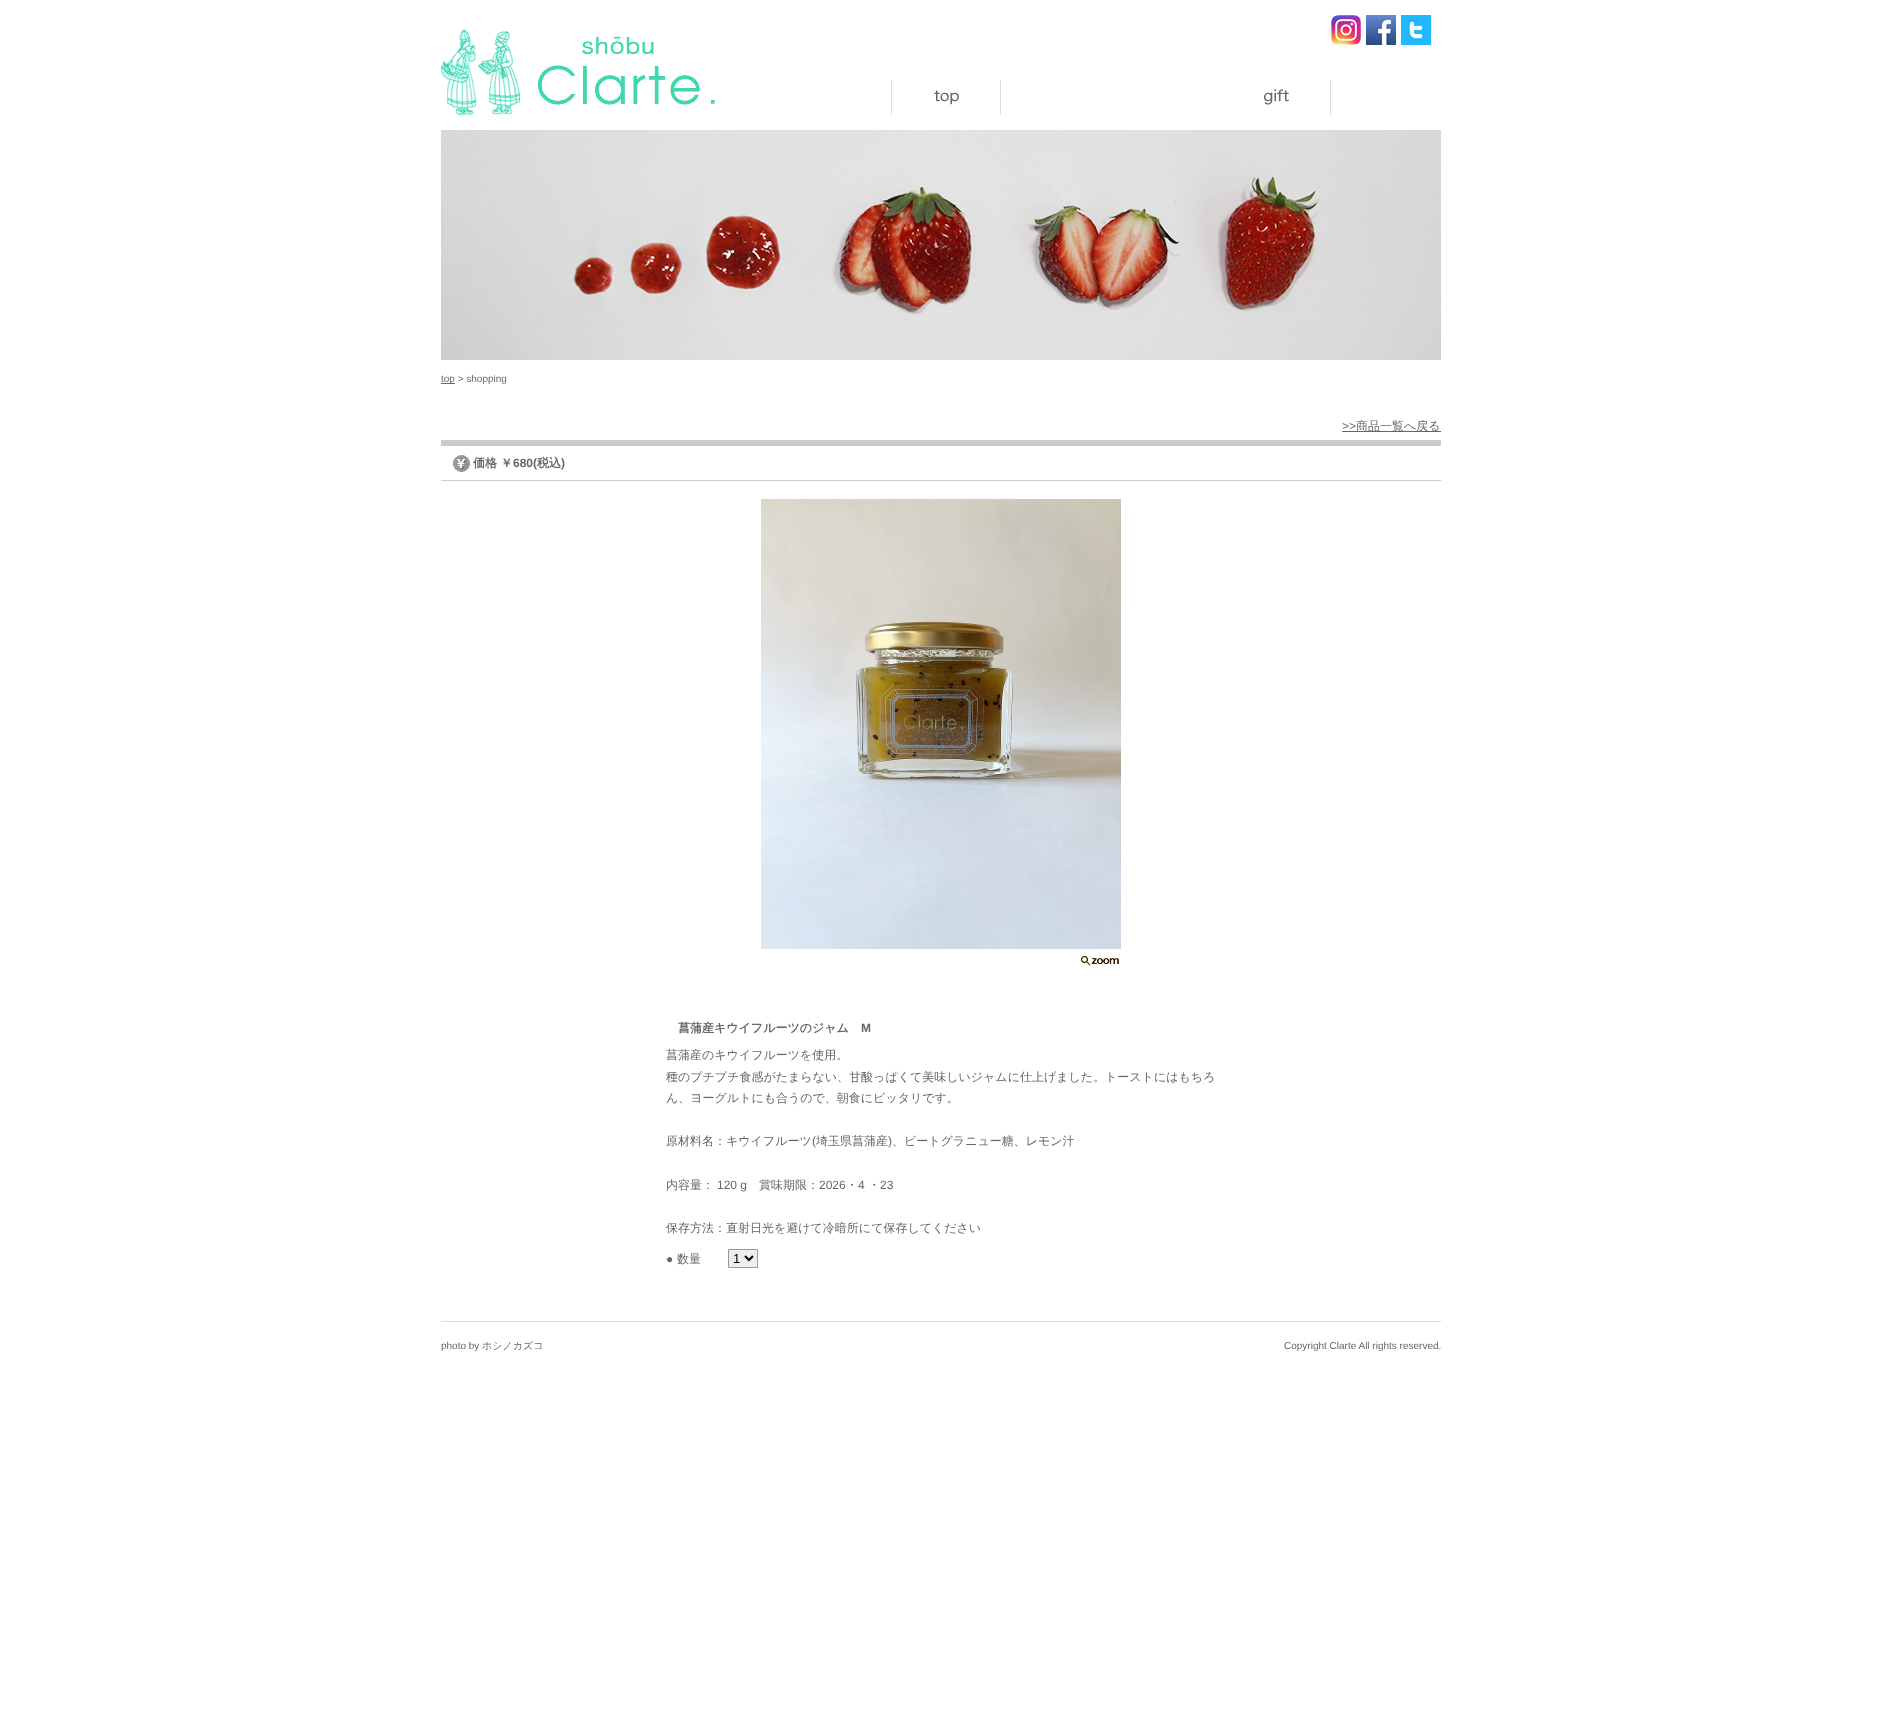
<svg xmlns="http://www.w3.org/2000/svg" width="1882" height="1716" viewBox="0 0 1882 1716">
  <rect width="100%" height="100%" fill="#fff"/>
  <image x="441" y="30" width="274" height="85" href="img/1.png"/>
  <image x="1331" y="15" width="30" height="30" href="img/2.png"/>
  <image x="1366" y="15" width="30" height="30" href="img/3.png"/>
  <image x="1401" y="15" width="30" height="30" href="img/4.png"/>
  <image x="891" y="80" width="110" height="35" href="img/5.png"/>
  <image x="1264" y="80" width="67" height="35" href="img/6.png"/>
  <image x="441" y="130" width="1000" height="230" href="img/7.png"/>
  <path d="M441 383h14v1H441z" fill="#666"/>
  <path d="M1342 431h99v1H1342z" fill="#666"/>
  <path d="M441 440h1000v6H441z" fill="#ccc"/>
  <image x="453" y="455" width="17" height="17" href="img/8.png"/>
  <path d="M441 480h1000v1H441z" fill="#ccc"/>
  <image x="761" y="499" width="360" height="450" href="img/9.png"/>
  <image x="1081" y="956" width="38" height="10" href="img/10.png"/>
  <path d="M728.5 1249.5h29v18H728.5z" fill="#eee" stroke="#999"/>
  <path d="M745 1256L749 1260L753 1256" fill="none" stroke="#000" stroke-width="2"/>
  <path d="M441 1321h1000v1H441z" fill="#ddd"/>
  <text x="441" y="382" font-family="Liberation Sans" font-size="10" fill="#666">top &gt; shopping</text>
  <text x="1342" y="430" font-family="Liberation Sans" font-size="12" fill="#666">&gt;&gt;</text>
  <text x="1356" y="430" font-family="WenQuanYi Zen Hei" font-size="12" font-weight="500" fill="#666">商品一覧へ戻る</text>
  <text x="473" y="467" font-family="WenQuanYi Zen Hei" font-size="12" font-weight="bold" fill="#666">価格 ￥</text>
  <text x="513" y="467" font-family="Liberation Sans" font-size="12" font-weight="bold" fill="#666">680(</text>
  <text x="537" y="467" font-family="WenQuanYi Zen Hei" font-size="12" font-weight="bold" fill="#666">税込</text>
  <text x="561" y="467" font-family="Liberation Sans" font-size="12" font-weight="bold" fill="#666">)</text>
  <text x="678" y="1032" font-family="WenQuanYi Zen Hei" font-size="12" font-weight="bold" fill="#666">菖蒲産キウイフルーツのジャム</text>
  <text x="861" y="1032" font-family="Liberation Sans" font-size="12" font-weight="bold" fill="#666">M</text>
  <g font-family="WenQuanYi Zen Hei" font-size="12" font-weight="500" fill="#666">
    <text x="666" y="1059">菖蒲産のキウイフルーツを使用。</text>
    <text x="666" y="1081">種のプチプチ食感がたまらない、甘酸っぱくて美味しいジャムに仕上げました。トーストにはもちろ</text>
    <text x="666" y="1102">ん、ヨーグルトにも合うので、朝食にピッタリです。</text>
    <text x="666" y="1145">原材料名：キウイフルーツ</text>
  </g>
  <text x="812" y="1145" font-family="Liberation Sans" font-size="12" fill="#666">(</text>
  <text x="816" y="1145" font-family="WenQuanYi Zen Hei" font-size="12" font-weight="500" fill="#666">埼玉県菖蒲産</text>
  <text x="888" y="1145" font-family="Liberation Sans" font-size="12" fill="#666">)</text>
  <g font-family="WenQuanYi Zen Hei" font-size="12" font-weight="500" fill="#666">
    <text x="892" y="1145">、ビートグラニュー糖、レモン汁</text>
    <text x="666" y="1189">内容量：</text>
  </g>
  <text x="717" y="1189" font-family="Liberation Sans" font-size="12" fill="#666">120 g</text>
  <text x="759" y="1189" font-family="WenQuanYi Zen Hei" font-size="12" font-weight="500" fill="#666">賞味期限：</text>
  <text x="819" y="1189" font-family="Liberation Sans" font-size="12" fill="#666">2026</text>
  <text x="846" y="1189" font-family="WenQuanYi Zen Hei" font-size="12" font-weight="500" fill="#666">・</text>
  <text x="858" y="1189" font-family="Liberation Sans" font-size="12" fill="#666">4</text>
  <text x="868" y="1189" font-family="WenQuanYi Zen Hei" font-size="12" font-weight="500" fill="#666">・</text>
  <text x="880" y="1189" font-family="Liberation Sans" font-size="12" fill="#666">23</text>
  <text x="666" y="1232" font-family="WenQuanYi Zen Hei" font-size="12" font-weight="500" fill="#666">保存方法：直射日光を避けて冷暗所にて保存してください</text>
  <text x="666" y="1263" font-family="Liberation Sans" font-size="12" fill="#666">●</text>
  <text x="677" y="1263" font-family="WenQuanYi Zen Hei" font-size="12" font-weight="500" fill="#666">数量</text>
  <text x="733" y="1263" font-family="Liberation Sans" font-size="13" fill="#000">1</text>
  <text x="441" y="1349" font-family="Liberation Sans" font-size="10" fill="#666">photo by</text>
  <text x="482" y="1349" font-family="WenQuanYi Zen Hei" font-size="10" font-weight="500" fill="#666">ホシノカズコ</text>
  <text x="1284" y="1349" font-family="Liberation Sans" font-size="10" fill="#666">Copyright Clarte All rights reserved.</text>
</svg>
